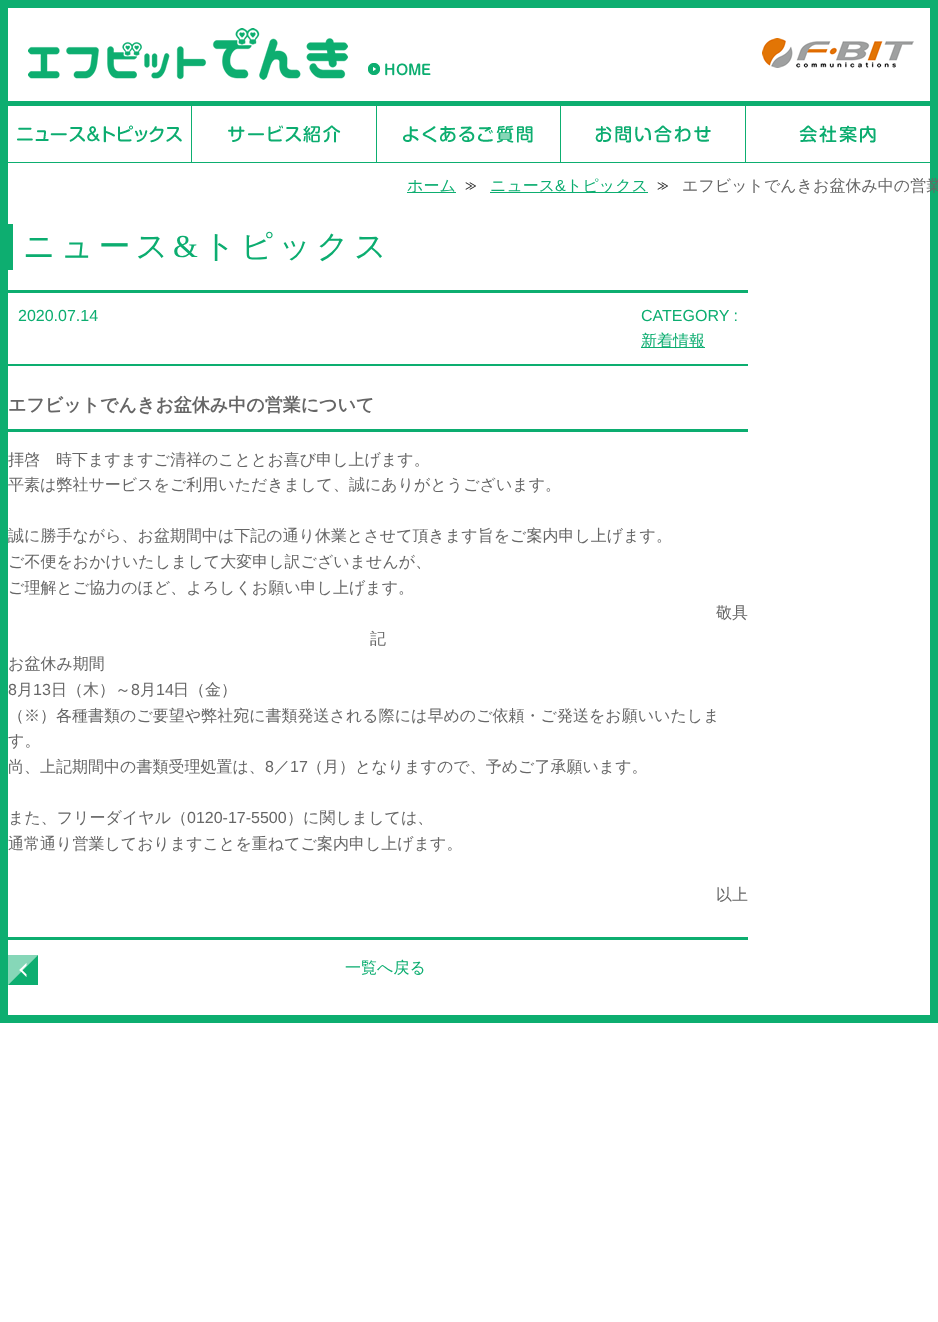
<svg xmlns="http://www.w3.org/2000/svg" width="938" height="1322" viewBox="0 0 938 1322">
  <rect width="100%" height="100%" fill="#fff"/>
  <path d="M4 4h930v1015H4z" fill="none" stroke="#0dae70" stroke-width="8"/>
  <image x="28" y="28" width="320" height="52" href="img/1.png"/>
  <image x="762" y="38" width="152" height="30" href="img/2.png"/>
  <image x="368" y="63" width="63" height="13" href="img/3.png"/>
  <path d="M8 101h922v5H8z" fill="#0dae70"/>
  <path d="M8 162h922v1H8z" fill="#0dae70"/>
  <image x="17" y="125" width="165" height="18" href="img/4.png"/>
  <path d="M191 106h1v56H191z" fill="#0dae70"/>
  <image x="228" y="125" width="113" height="18" href="img/5.png"/>
  <path d="M376 106h1v56H376z" fill="#0dae70"/>
  <image x="403" y="125" width="130" height="18" href="img/6.png"/>
  <path d="M560 106h1v56H560z" fill="#0dae70"/>
  <image x="595" y="125" width="116" height="18" href="img/7.png"/>
  <path d="M745 106h1v56H745z" fill="#0dae70"/>
  <image x="799" y="125" width="77" height="18" href="img/8.png"/>
  <path d="M407 192h49v1H407z" fill="#0dae70"/>
  <image x="465" y="182" width="11" height="8" href="img/9.png"/>
  <path d="M490 192h158v1H490z" fill="#0dae70"/>
  <image x="657" y="182" width="11" height="8" href="img/9.png"/>
  <path d="M8 224h5v46H8z" fill="#0dae70"/>
  <path d="M8 290h740v3H8z" fill="#0dae70"/>
  <path d="M8 364h740v2H8z" fill="#0dae70"/>
  <path d="M641 347h64v1H641z" fill="#0cad70"/>
  <path d="M8 429h740v3H8z" fill="#0cad70"/>
  <path d="M8 937h740v3H8z" fill="#0dae70"/>
  <image x="8" y="955" width="30" height="30" href="img/10.png"/>
  <g font-family="WenQuanYi Zen Hei" font-size="16" font-weight="500" fill="#0cad70">
    <text x="407" y="191">ホーム</text>
    <text x="490" y="191">ニュース</text>
  </g>
  <text x="555" y="191" font-family="Liberation Sans" font-size="16" fill="#0cad70">&amp;</text>
  <text x="566" y="191" font-family="WenQuanYi Zen Hei" font-size="16" font-weight="500" fill="#0cad70">トピックス</text>
  <text x="682" y="191" font-family="WenQuanYi Zen Hei" font-size="16" font-weight="500" fill="#666">エフビットでんきお盆休み中の営業</text>
  <text x="23" y="257" font-family="WenQuanYi Zen Hei" font-size="32" font-weight="500" letter-spacing="5" fill="#0cad70">ニュース</text>
  <text x="173" y="257" font-family="Liberation Serif" font-size="32" letter-spacing="5" fill="#0cad70">&amp;</text>
  <text x="203" y="257" font-family="WenQuanYi Zen Hei" font-size="32" font-weight="500" letter-spacing="5" fill="#0cad70">トピックス</text>
  <g font-family="Liberation Sans" font-size="16" fill="#0cad70">
    <text x="18" y="321">2020.07.14</text>
    <text x="641" y="321">CATEGORY :</text>
  </g>
  <text x="641" y="346" font-family="WenQuanYi Zen Hei" font-size="16" font-weight="500" fill="#0cad70">新着情報</text>
  <text x="8" y="411" font-family="WenQuanYi Zen Hei" font-size="18" font-weight="bold" fill="#666">エフビットでんきお盆休み中の営業について</text>
  <g font-family="WenQuanYi Zen Hei" font-size="16" font-weight="500" fill="#666">
    <text x="8" y="465">拝啓　時下ますますご清祥のこととお喜び申し上げます。</text>
    <text x="8" y="490">平素は弊社サービスをご利用いただきまして、誠にありがとうございます。</text>
    <text x="8" y="541">誠に勝手ながら、お盆期間中は下記の通り休業とさせて頂きます旨をご案内申し上げます。</text>
    <text x="8" y="567">ご不便をおかけいたしまして大変申し訳ございませんが、</text>
    <text x="8" y="593">ご理解とご協力のほど、よろしくお願い申し上げます。</text>
    <text x="716" y="618">敬具</text>
    <text x="370" y="644">記</text>
    <text x="8" y="669">お盆休み期間</text>
  </g>
  <text x="8" y="695" font-family="Liberation Sans" font-size="16" fill="#666">8</text>
  <text x="17" y="695" font-family="WenQuanYi Zen Hei" font-size="16" font-weight="500" fill="#666">月</text>
  <text x="33" y="695" font-family="Liberation Sans" font-size="16" fill="#666">13</text>
  <text x="51" y="695" font-family="WenQuanYi Zen Hei" font-size="16" font-weight="500" fill="#666">日（木）～</text>
  <text x="131" y="695" font-family="Liberation Sans" font-size="16" fill="#666">8</text>
  <text x="140" y="695" font-family="WenQuanYi Zen Hei" font-size="16" font-weight="500" fill="#666">月</text>
  <text x="156" y="695" font-family="Liberation Sans" font-size="16" fill="#666">14</text>
  <g font-family="WenQuanYi Zen Hei" font-size="16" font-weight="500" fill="#666">
    <text x="173" y="695">日（金）</text>
    <text x="8" y="721">（※）各種書類のご要望や弊社宛に書類発送される際には早めのご依頼・ご発送をお願いいたしま</text>
    <text x="8" y="746">す。</text>
    <text x="8" y="772">尚、上記期間中の書類受理処置は、</text>
  </g>
  <text x="265" y="772" font-family="Liberation Sans" font-size="16" fill="#666">8</text>
  <text x="274" y="772" font-family="WenQuanYi Zen Hei" font-size="16" font-weight="500" fill="#666">／</text>
  <text x="290" y="772" font-family="Liberation Sans" font-size="16" fill="#666">17</text>
  <g font-family="WenQuanYi Zen Hei" font-size="16" font-weight="500" fill="#666">
    <text x="307" y="772">（月）となりますので、予めご了承願います。</text>
    <text x="8" y="823">また、フリーダイヤル（</text>
  </g>
  <text x="187" y="823" font-family="Liberation Sans" font-size="16" fill="#666">0120-17-5500</text>
  <g font-family="WenQuanYi Zen Hei" font-size="16" font-weight="500" fill="#666">
    <text x="287" y="823">）に関しましては、</text>
    <text x="8" y="849">通常通り営業しておりますことを重ねてご案内申し上げます。</text>
    <text x="716" y="900">以上</text>
  </g>
  <text x="345" y="973" font-family="WenQuanYi Zen Hei" font-size="16" font-weight="500" fill="#0cad70">一覧へ戻る</text>
</svg>
